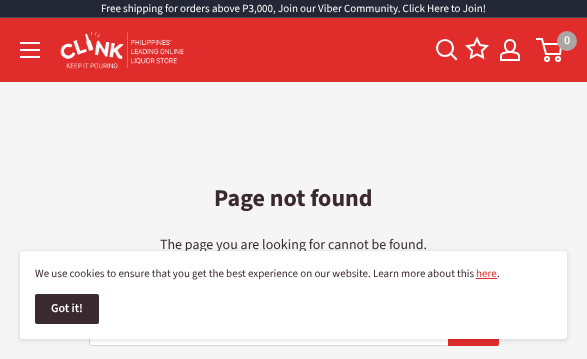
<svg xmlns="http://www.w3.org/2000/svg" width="587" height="359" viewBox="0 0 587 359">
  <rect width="100%" height="100%" fill="#f5f5f5"/>
  <path d="M0 0h587v17H0z" fill="#232736"/>
  <path d="M0 17h587v1H0z" fill="#4c4d57"/>
  <path d="M0 18h587v64H0z" fill="#e12c2c"/>
  <image x="60" y="31" width="124" height="38" href="img/1.png"/>
  <path d="M456 59L450.5 53.5" fill="none" stroke="#fff" stroke-width="2.1" stroke-linecap="square"/>
  <circle cx="445" cy="48" r="8" fill="none" stroke="#fff" stroke-width="2.1"/>
  <image x="465" y="36" width="24" height="24" href="img/2.png"/>
  <image x="500" y="39" width="20" height="22" href="img/3.png"/>
  <circle cx="547" cy="59" r="2" fill="none" stroke="#fff" stroke-width="2"/>
  <circle cx="558" cy="59" r="2" fill="none" stroke="#fff" stroke-width="2"/>
  <path d="M543.5 44H561.5L560 54H546L542 39H536" fill="none" stroke="#fff" stroke-width="2"/>
  <circle cx="567" cy="41" r="10" fill="#aba6a4"/>
  <image x="20" y="42" width="20" height="16" href="img/4.png"/>
  <path d="M91 298H448V346H91C90 346 89 345 89 344V300C89 299 90 298 91 298Z" fill="#fff"/>
  <path d="M90 345h358v1H90z" fill="#d5d5d5"/>
  <path d="M89 339h1v6H89z" fill="#d5d5d5"/>
  <path d="M448 298H497C498 298 499 299 499 300V344C499 345 498 346 497 346H448Z" fill="#e12c2c"/>
  <rect x="19" y="251" width="549" height="90" rx="4" fill="#0000001a" filter="blur(2px)"/>
  <text x="101" y="12" font-family="Source Sans Pro" font-size="11" fill="#fff">Free shipping for orders above P3,000, Join our Viber Community. Click Here to Join!</text>
  <text x="564" y="44" font-family="Source Sans Pro" font-size="12" font-weight="600" fill="#fff">0</text>
  <text x="214" y="206" font-family="Source Sans Pro" font-size="24" font-weight="bold" fill="#3a2a2f">Page not found</text>
  <text x="160" y="249" font-family="Source Sans Pro" font-size="14" fill="#3a2a2f">The page you are looking for cannot be found.</text>
  <rect x="20" y="251" width="547" height="88" rx="3" fill="#fff"/>
  <text x="35" y="277" font-family="Source Sans Pro" font-size="11" fill="#3a2a2f">We use cookies to ensure that you get the best experience on our website. Learn more about this</text>
  <text x="476" y="277" font-family="Source Sans Pro" font-size="11" fill="#e12c2c">here</text>
  <path d="M476 278h21v1H476z" fill="#e12c2c"/>
  <text x="497" y="277" font-family="Source Sans Pro" font-size="11" fill="#3a2a2f">.</text>
  <rect x="35" y="294" width="64" height="30" rx="2" fill="#3a2a2f"/>
  <text x="51" y="312" font-family="Source Sans Pro" font-size="12" font-weight="600" fill="#fff">Got it!</text>
</svg>
